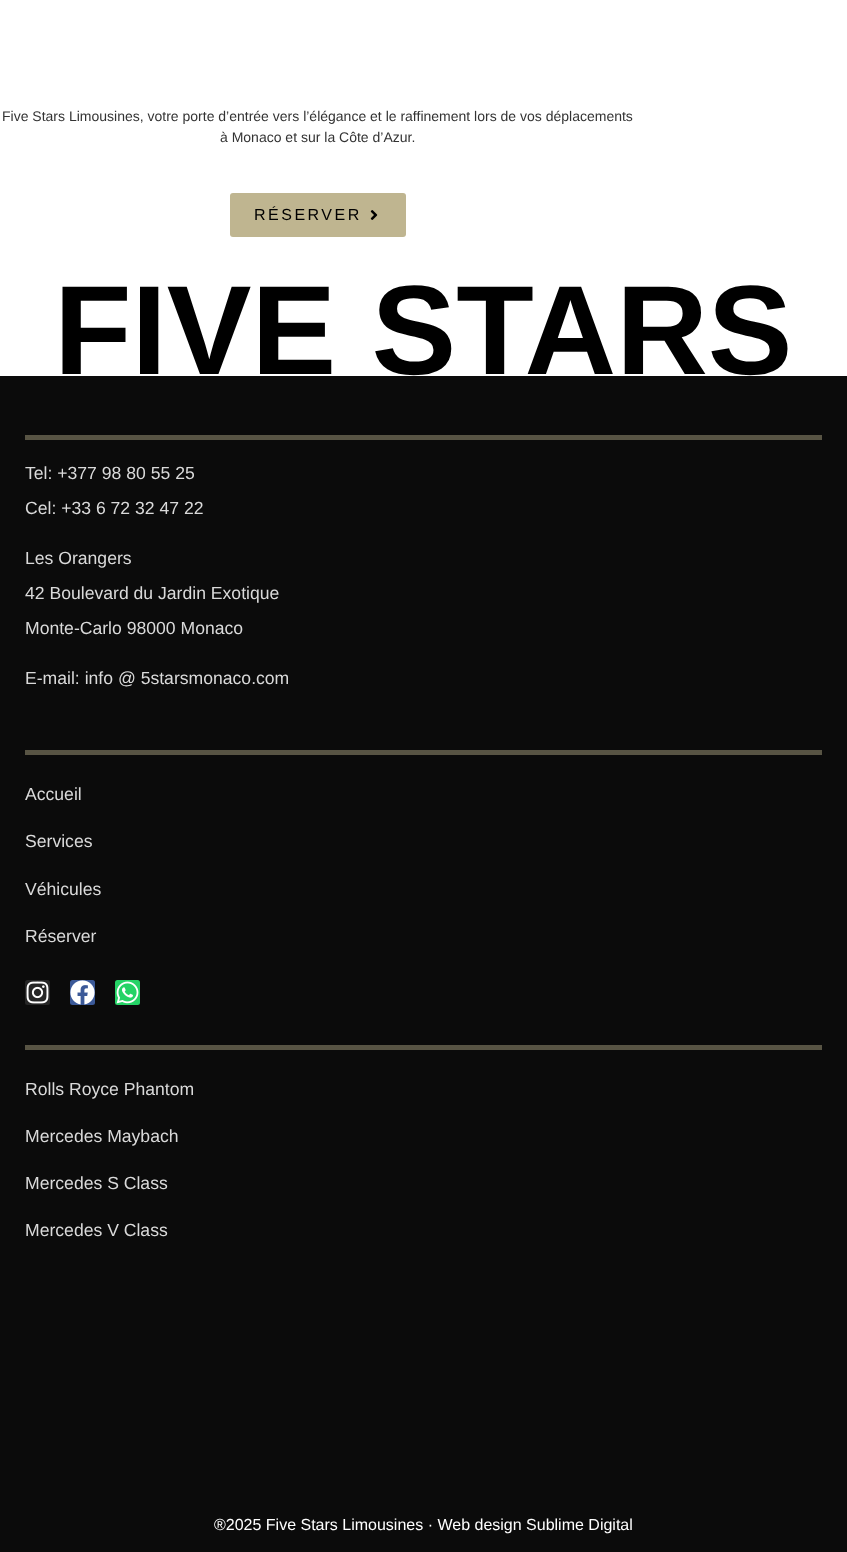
<svg xmlns="http://www.w3.org/2000/svg" width="847" height="1552" viewBox="0 0 847 1552">
  <rect width="100%" height="100%" fill="#0b0b0b"/>
  <path d="M0 0h847v376H0z" fill="#fff"/>
  <rect x="230" y="193" width="176" height="44" rx="3" fill="#bfb590"/>
  <image x="370" y="210" width="8" height="10" href="img/1.png"/>
  <path d="M25 435h797v5H25z" fill="#585444"/>
  <path d="M25 750h797v5H25z" fill="#585444"/>
  <rect x="25" y="980" width="25" height="25" rx="2.5" fill="#262626"/>
  <image x="26" y="981" width="23" height="23" href="img/2.png"/>
  <rect x="70" y="980" width="25" height="25" rx="2.5" fill="#3b5998"/>
  <image x="70" y="980" width="25" height="25" href="img/3.png"/>
  <rect x="115" y="980" width="25" height="25" rx="2.5" fill="#25d366"/>
  <image x="116" y="981" width="23" height="23" href="img/4.png"/>
  <path d="M25 1045h797v5H25z" fill="#585444"/>
  <g font-family="Liberation Sans" font-size="14" fill="#333">
    <text x="2" y="121">Five Stars Limousines, votre porte d’entrée vers l’élégance et le raffinement lors de vos déplacements</text>
    <text x="220" y="142">à Monaco et sur la Côte d’Azur.</text>
  </g>
  <text x="254" y="220" font-family="Liberation Sans" font-size="16" letter-spacing="2.5" fill="#000">RÉSERVER</text>
  <text x="54" y="374" font-family="Liberation Sans" font-size="127" font-weight="bold" fill="#000">FIVE STARS</text>
  <g font-family="Liberation Sans" font-size="17.6" fill="#dadada">
    <text x="25" y="479">Tel: +377 98 80 55 25</text>
    <text x="25" y="514">Cel: +33 6 72 32 47 22</text>
    <text x="25" y="564">Les Orangers</text>
    <text x="25" y="599">42 Boulevard du Jardin Exotique</text>
    <text x="25" y="634">Monte-Carlo 98000 Monaco</text>
    <text x="25" y="684">E-mail: info @ 5starsmonaco.com</text>
    <text x="25" y="800">Accueil</text>
    <text x="25" y="847">Services</text>
    <text x="25" y="895">Véhicules</text>
    <text x="25" y="942">Réserver</text>
    <text x="25" y="1095">Rolls Royce Phantom</text>
    <text x="25" y="1142">Mercedes Maybach</text>
    <text x="25" y="1189">Mercedes S Class</text>
    <text x="25" y="1236">Mercedes V Class</text>
  </g>
  <text x="214" y="1530" font-family="Liberation Sans" font-size="16" fill="#fff">®2025 Five Stars Limousines · Web design Sublime Digital</text>
</svg>
